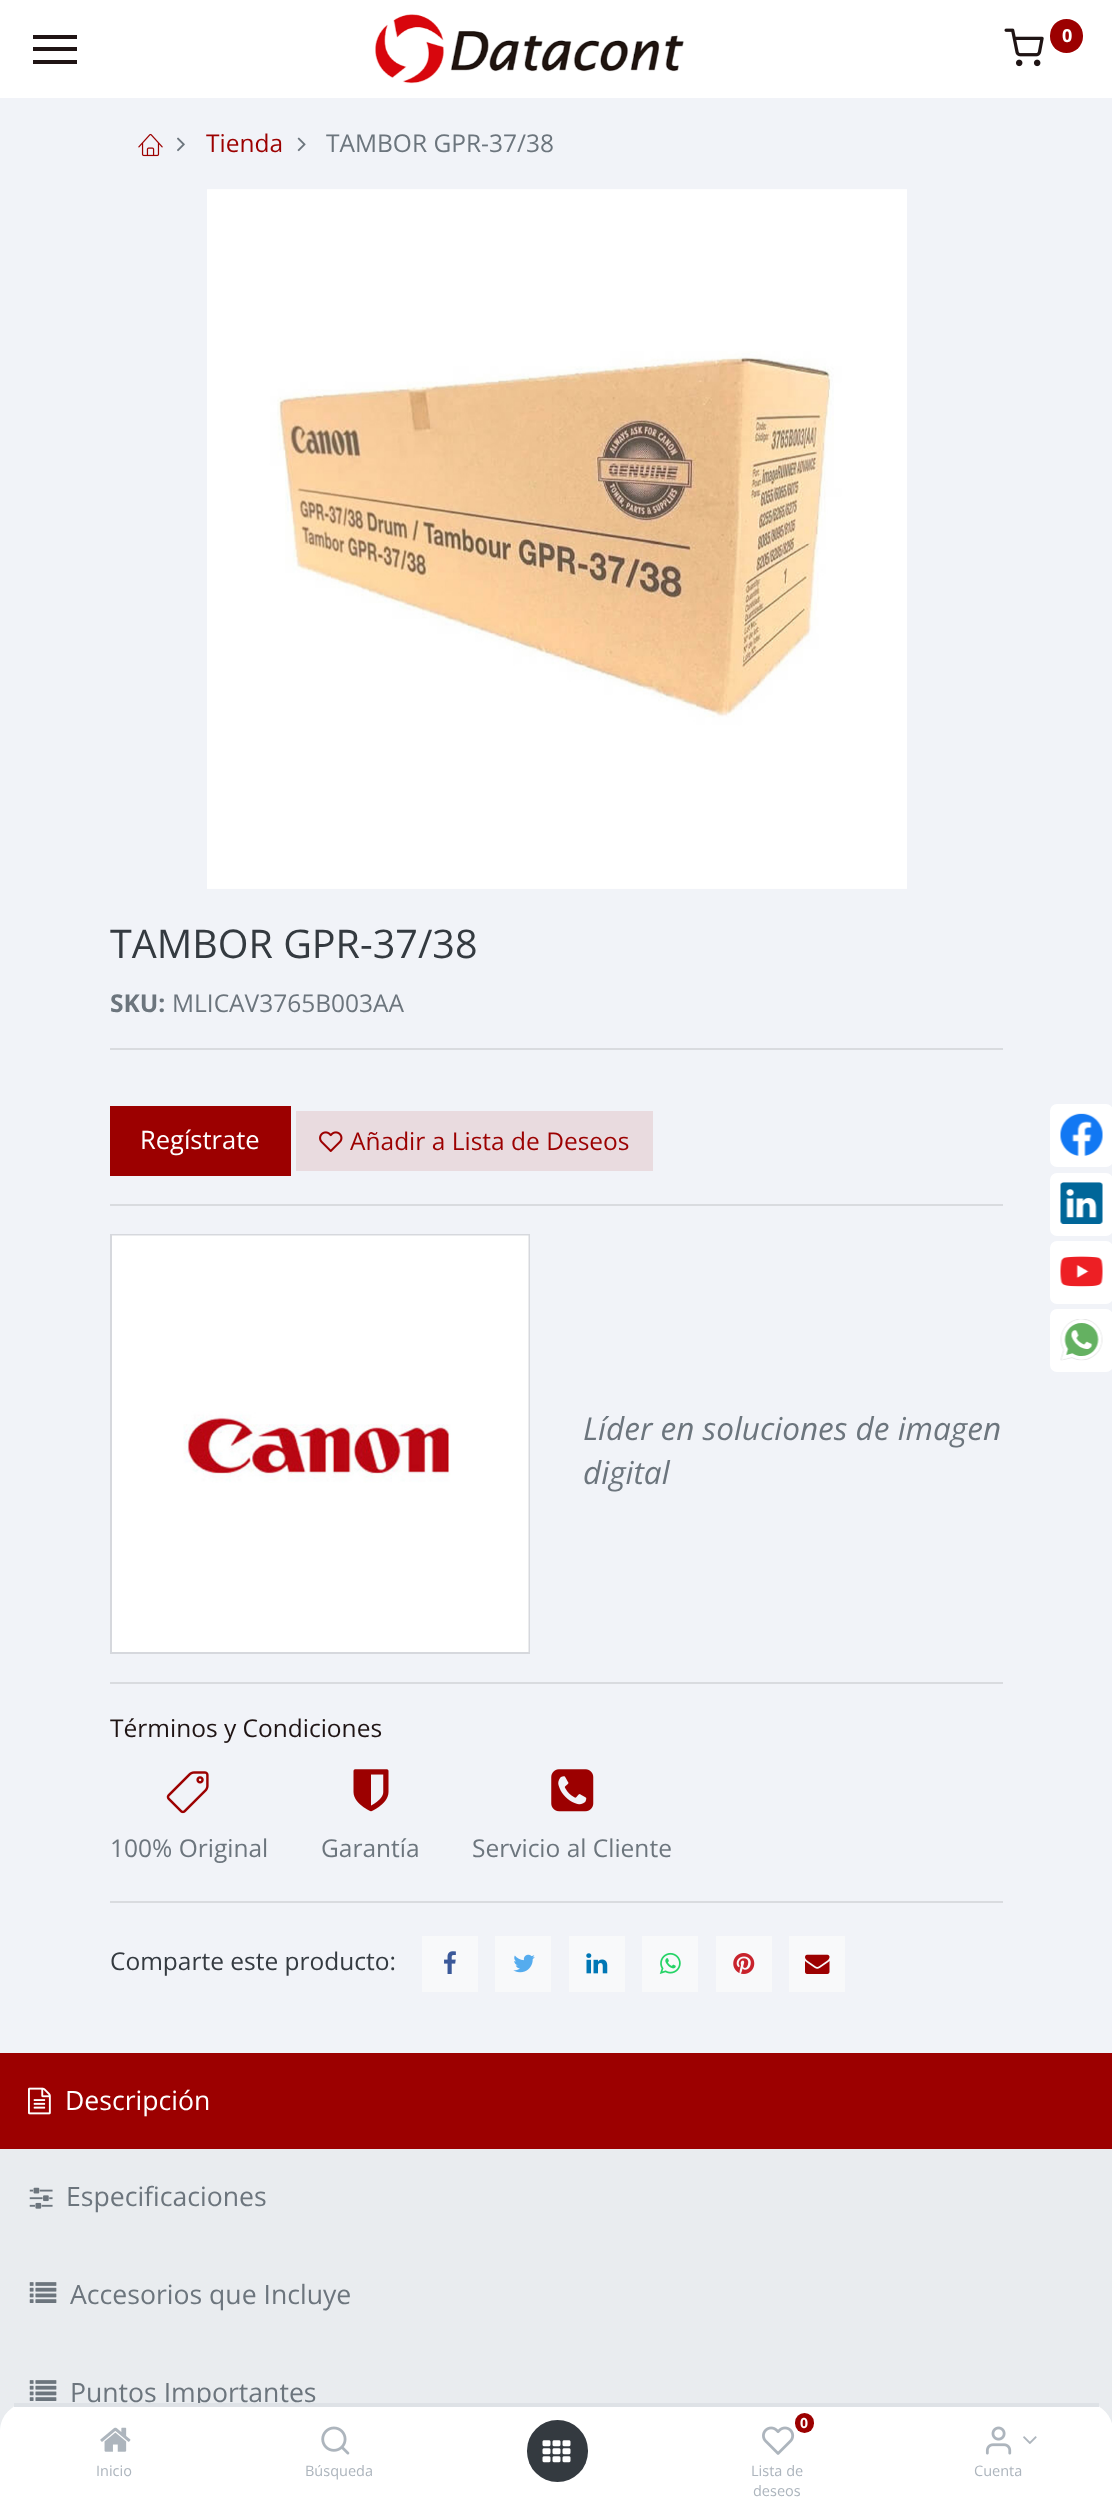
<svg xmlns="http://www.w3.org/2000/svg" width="1112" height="2501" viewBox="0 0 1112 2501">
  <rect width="100%" height="100%" fill="#f1f3f8"/>
  <path d="M0 0h1112v98H0z" fill="#fff"/>
  <path d="M33 35h44v4H33z" fill="#1f1414"/>
  <path d="M33 47h44v4H33z" fill="#1f1414"/>
  <path d="M33 60h44v4H33z" fill="#1f1414"/>
  <image x="375" y="14" width="309" height="70" href="img/1.png"/>
  <image x="1004" y="28" width="40" height="39" href="img/2.png"/>
  <rect x="1050" y="19" width="33" height="34" rx="16.5" fill="#9c0000"/>
  <image x="138" y="133" width="25" height="24" href="img/3.png"/>
  <image x="177" y="137" width="8" height="15" href="img/4.png"/>
  <image x="297" y="137" width="9" height="15" href="img/5.png"/>
  <image x="207" y="189" width="700" height="700" href="img/6.png"/>
  <path d="M110 1048h893v2H110z" fill="#d9dbdf"/>
  <path d="M110 1106h181v70H110z" fill="#9c0000"/>
  <path d="M296 1111h357v60H296z" fill="#e9dbdf"/>
  <image x="319" y="1131" width="24" height="21" href="img/7.png"/>
  <path d="M110 1204h893v2H110z" fill="#d9dbdf"/>
  <path d="M111 1235h418v418H111z" fill="none" stroke="#d6d8dd" stroke-width="2"/>
  <image x="112" y="1235" width="417" height="417" href="img/8.png"/>
  <path d="M110 1682h893v2H110z" fill="#d9dbdf"/>
  <image x="166" y="1771" width="43" height="43" href="img/9.png"/>
  <image x="353" y="1769" width="36" height="43" href="img/10.png"/>
  <image x="551" y="1769" width="43" height="43" href="img/11.png"/>
  <path d="M110 1901h893v2H110z" fill="#d9dbdf"/>
  <path d="M422 1936h56v56H422z" fill="#f8f9fa"/>
  <image x="444" y="1951" width="12" height="23" href="img/12.png"/>
  <path d="M495 1936h56v56H495z" fill="#f8f9fa"/>
  <image x="513" y="1954" width="22" height="19" href="img/13.png"/>
  <path d="M569 1936h56v56H569z" fill="#f8f9fa"/>
  <image x="586" y="1953" width="22" height="21" href="img/14.png"/>
  <path d="M642 1936h56v56H642z" fill="#f8f9fa"/>
  <image x="659" y="1952" width="22" height="22" href="img/15.png"/>
  <path d="M716 1936h56v56H716z" fill="#f8f9fa"/>
  <image x="733" y="1953" width="22" height="21" href="img/16.png"/>
  <path d="M789 1936h56v56H789z" fill="#f8f9fa"/>
  <image x="805" y="1954" width="25" height="20" href="img/17.png"/>
  <path d="M0 2149h1112v282H0z" fill="#e9ecef"/>
  <path d="M0 2053h1112v96H0z" fill="#9c0000"/>
  <image x="28" y="2087" width="23" height="28" href="img/18.png"/>
  <image x="29" y="2187" width="24" height="22" href="img/19.png"/>
  <image x="29" y="2282" width="28" height="21" href="img/20.png"/>
  <image x="29" y="2380" width="28" height="21" href="img/20.png"/>
  <rect x="1050" y="1104" width="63" height="63" rx="7" fill="#fff"/>
  <image x="1060" y="1113" width="43" height="43" href="img/21.png"/>
  <rect x="1050" y="1173" width="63" height="63" rx="7" fill="#fff"/>
  <image x="1060" y="1182" width="43" height="42" href="img/22.png"/>
  <rect x="1050" y="1241" width="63" height="63" rx="7" fill="#fff"/>
  <image x="1060" y="1256" width="43" height="31" href="img/23.png"/>
  <rect x="1050" y="1309" width="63" height="63" rx="7" fill="#fff"/>
  <image x="1060" y="1319" width="43" height="42" href="img/24.png"/>
  <text x="1062" y="42" font-family="Open Sans" font-size="18" font-weight="bold" fill="#fff">0</text>
  <text x="206" y="152" font-family="Open Sans" font-size="24.5" fill="#9c0000">Tienda</text>
  <text x="326" y="152" font-family="Open Sans" font-size="24.5" fill="#6c757d">TAMBOR GPR-37/38</text>
  <text x="110" y="958" font-family="Open Sans" font-size="39.5" fill="#343a40">TAMBOR GPR-37/38</text>
  <text x="110" y="1012" font-family="Open Sans" font-size="24.5" font-weight="bold" fill="#6c757d">SKU:</text>
  <text x="172" y="1012" font-family="Open Sans" font-size="24.5" fill="#6c757d">MLICAV3765B003AA</text>
  <text x="140" y="1149" font-family="Open Sans" font-size="25.5" fill="#fff">Regístrate</text>
  <text x="350" y="1150" font-family="Open Sans" font-size="24.5" fill="#9c0000">Añadir a Lista de Deseos</text>
  <g font-family="Open Sans" font-size="31.5" font-style="italic" fill="#6c757d">
    <text x="583" y="1440">Líder en soluciones de imagen</text>
    <text x="583" y="1484">digital</text>
  </g>
  <text x="110" y="1737" font-family="Open Sans" font-size="24.5" fill="#1f1414">Términos y Condiciones</text>
  <g font-family="Open Sans" font-size="24.5" fill="#6c757d">
    <text x="110" y="1857">100% Original</text>
    <text x="321" y="1857">Garantía</text>
    <text x="472" y="1857">Servicio al Cliente</text>
  </g>
  <text x="110" y="1970" font-family="Open Sans" font-size="24.5" fill="#343a40">Comparte este producto:</text>
  <text x="65" y="2110" font-family="Open Sans" font-size="26.6" fill="#fff">Descripción</text>
  <g font-family="Open Sans" font-size="26.6" fill="#6c757d">
    <text x="66" y="2206">Especificaciones</text>
    <text x="70" y="2304">Accesorios que Incluye</text>
    <text x="70" y="2402">Puntos Importantes</text>
  </g>
  <path d="M28 2403H1085C1100.5 2403 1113 2415.5 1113 2431V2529H0V2431C0 2415.5 12.5 2403 28 2403Z" fill="#fff"/>
  <path d="M14 2403h1085v4H14z" fill="#dee2e6"/>
  <image x="100" y="2427" width="31" height="25" href="img/25.png"/>
  <text x="96" y="2476" font-family="Open Sans" font-size="14.5" fill="#adb5bd">Inicio</text>
  <image x="321" y="2426" width="29" height="29" href="img/26.png"/>
  <text x="305" y="2476" font-family="Open Sans" font-size="14.5" fill="#adb5bd">Búsqueda</text>
  <rect x="527" y="2420" width="61" height="62" rx="30.5" fill="#343a40"/>
  <image x="542" y="2440" width="29" height="23" href="img/27.png"/>
  <rect x="795" y="2413" width="19" height="20" rx="9.5" fill="#9c0000"/>
  <text x="800" y="2428" font-family="Open Sans" font-size="14" font-weight="bold" fill="#fff">0</text>
  <image x="762" y="2426" width="33" height="29" href="img/28.png"/>
  <g font-family="Open Sans" font-size="14.5" fill="#adb5bd">
    <text x="751" y="2476">Lista de</text>
    <text x="753" y="2496">deseos</text>
  </g>
  <image x="985" y="2426" width="27" height="29" href="img/29.png"/>
  <image x="1023" y="2436" width="14" height="8" href="img/30.png"/>
  <text x="974" y="2476" font-family="Open Sans" font-size="14.5" fill="#adb5bd">Cuenta</text>
</svg>
